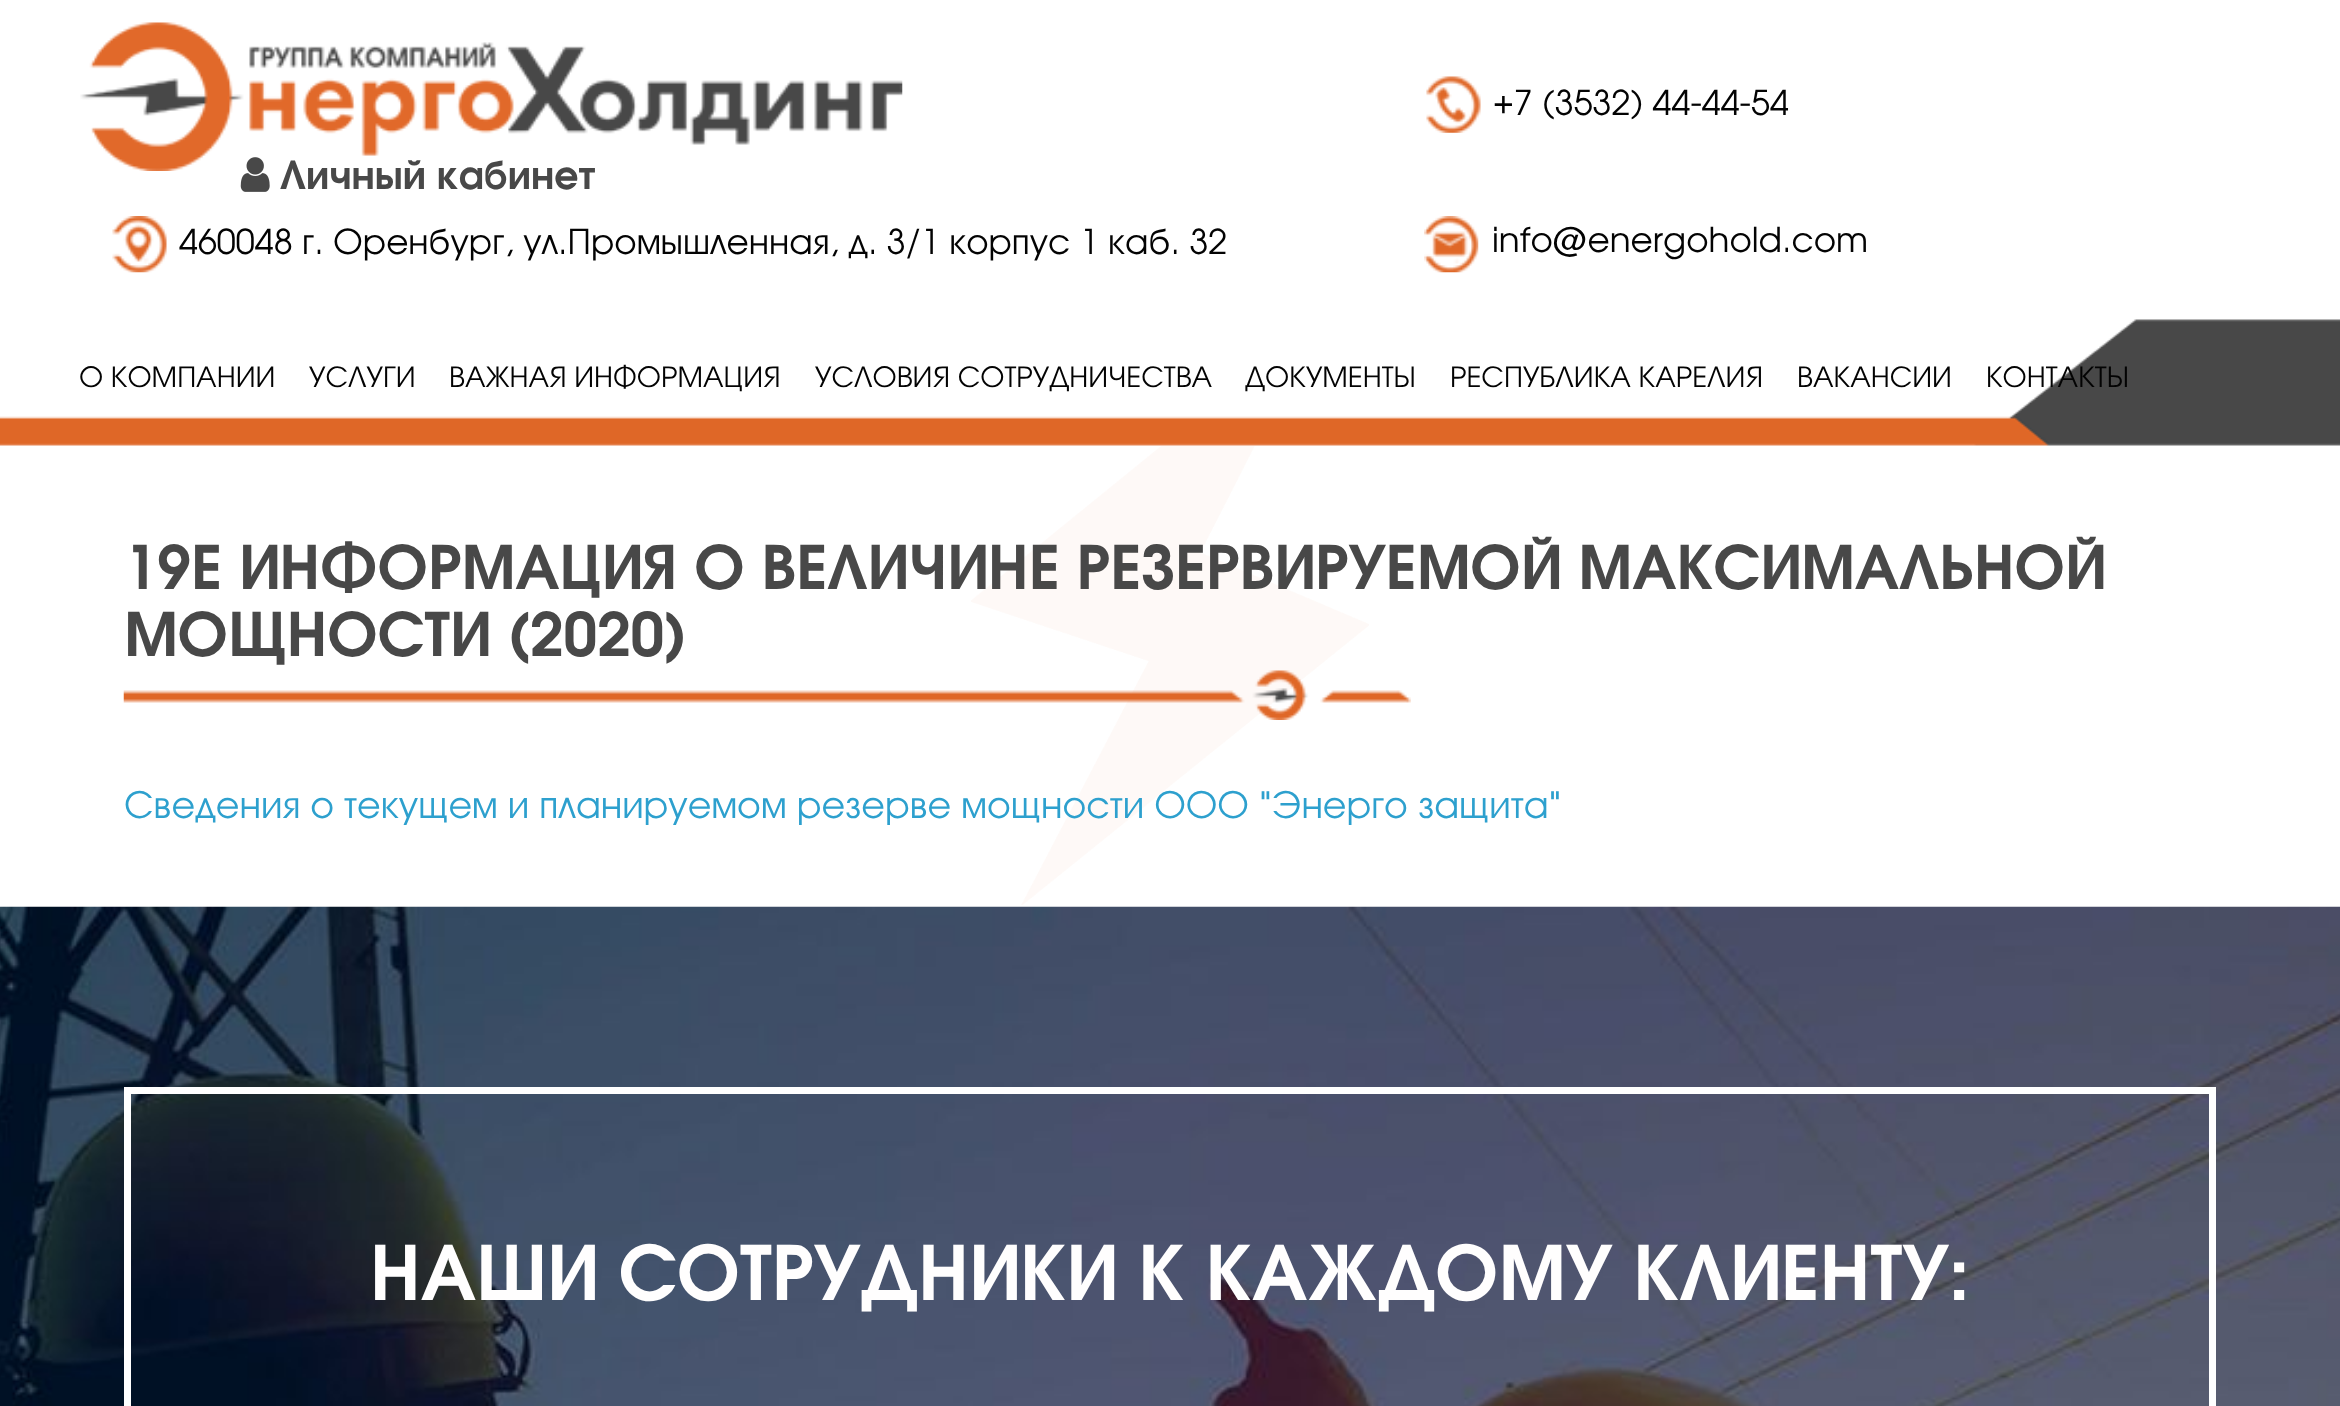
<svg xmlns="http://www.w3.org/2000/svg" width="2340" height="1406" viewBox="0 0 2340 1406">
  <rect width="100%" height="100%" fill="#fff"/>
  <image x="0" y="319" width="2340" height="127" href="img/1.png"/>
  <image x="1426" y="76" width="55" height="57" href="img/2.png"/>
  <image x="80" y="22" width="823" height="149" href="img/3.png"/>
  <image x="240" y="157" width="30" height="35" href="img/4.png"/>
  <image x="112" y="216" width="55" height="57" href="img/5.png"/>
  <image x="1424" y="216" width="55" height="57" href="img/6.png"/>
  <image x="971" y="446" width="398" height="459" href="img/7.png"/>
  <image x="123" y="670" width="1288" height="50" href="img/8.png"/>
  <image x="0" y="906" width="2340" height="500" href="img/9.png"/>
  <path d="M127.5 1090.5h2085v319H127.5z" fill="none" stroke="#fff" stroke-width="7"/>
  <text x="1493" y="115" font-family="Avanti" font-size="36" fill="#030303">+7 (3532) 44-44-54</text>
  <text x="280" y="189" font-family="Avanti" font-size="40.5" font-weight="bold" fill="#484848">Личный кабинет</text>
  <g font-family="Avanti" font-size="36" fill="#030303">
    <text x="179" y="254">460048 г. Оренбург, ул.Промышленная, д. 3/1 корпус 1 каб. 32</text>
    <text x="1492" y="252">info@energohold.com</text>
  </g>
  <g font-family="Avanti" font-size="29.25" fill="#030303">
    <text x="79" y="387">О КОМПАНИИ</text>
    <text x="309" y="387">УСЛУГИ</text>
    <text x="449" y="387">ВАЖНАЯ ИНФОРМАЦИЯ</text>
    <text x="815" y="387">УСЛОВИЯ СОТРУДНИЧЕСТВА</text>
    <text x="1245" y="387">ДОКУМЕНТЫ</text>
    <text x="1450" y="387">РЕСПУБЛИКА КАРЕЛИЯ</text>
    <text x="1797" y="387">ВАКАНСИИ</text>
    <text x="1986" y="387">КОНТАКТЫ</text>
  </g>
  <g font-family="Avanti" font-size="63" font-weight="bold" fill="#484848">
    <text x="124" y="589">19Е ИНФОРМАЦИЯ О ВЕЛИЧИНЕ РЕЗЕРВИРУЕМОЙ МАКСИМАЛЬНОЙ</text>
    <text x="124" y="656">МОЩНОСТИ (2020)</text>
  </g>
  <text x="124" y="818" font-family="Avanti" font-size="38.25" fill="#2da0ce">Сведения о текущем и планируемом резерве мощности ООО "Энерго защита"</text>
  <text x="370" y="1300" font-family="Avanti" font-size="78.75" font-weight="bold" fill="#fffefe">НАШИ СОТРУДНИКИ К КАЖДОМУ КЛИЕНТУ:</text>
</svg>
